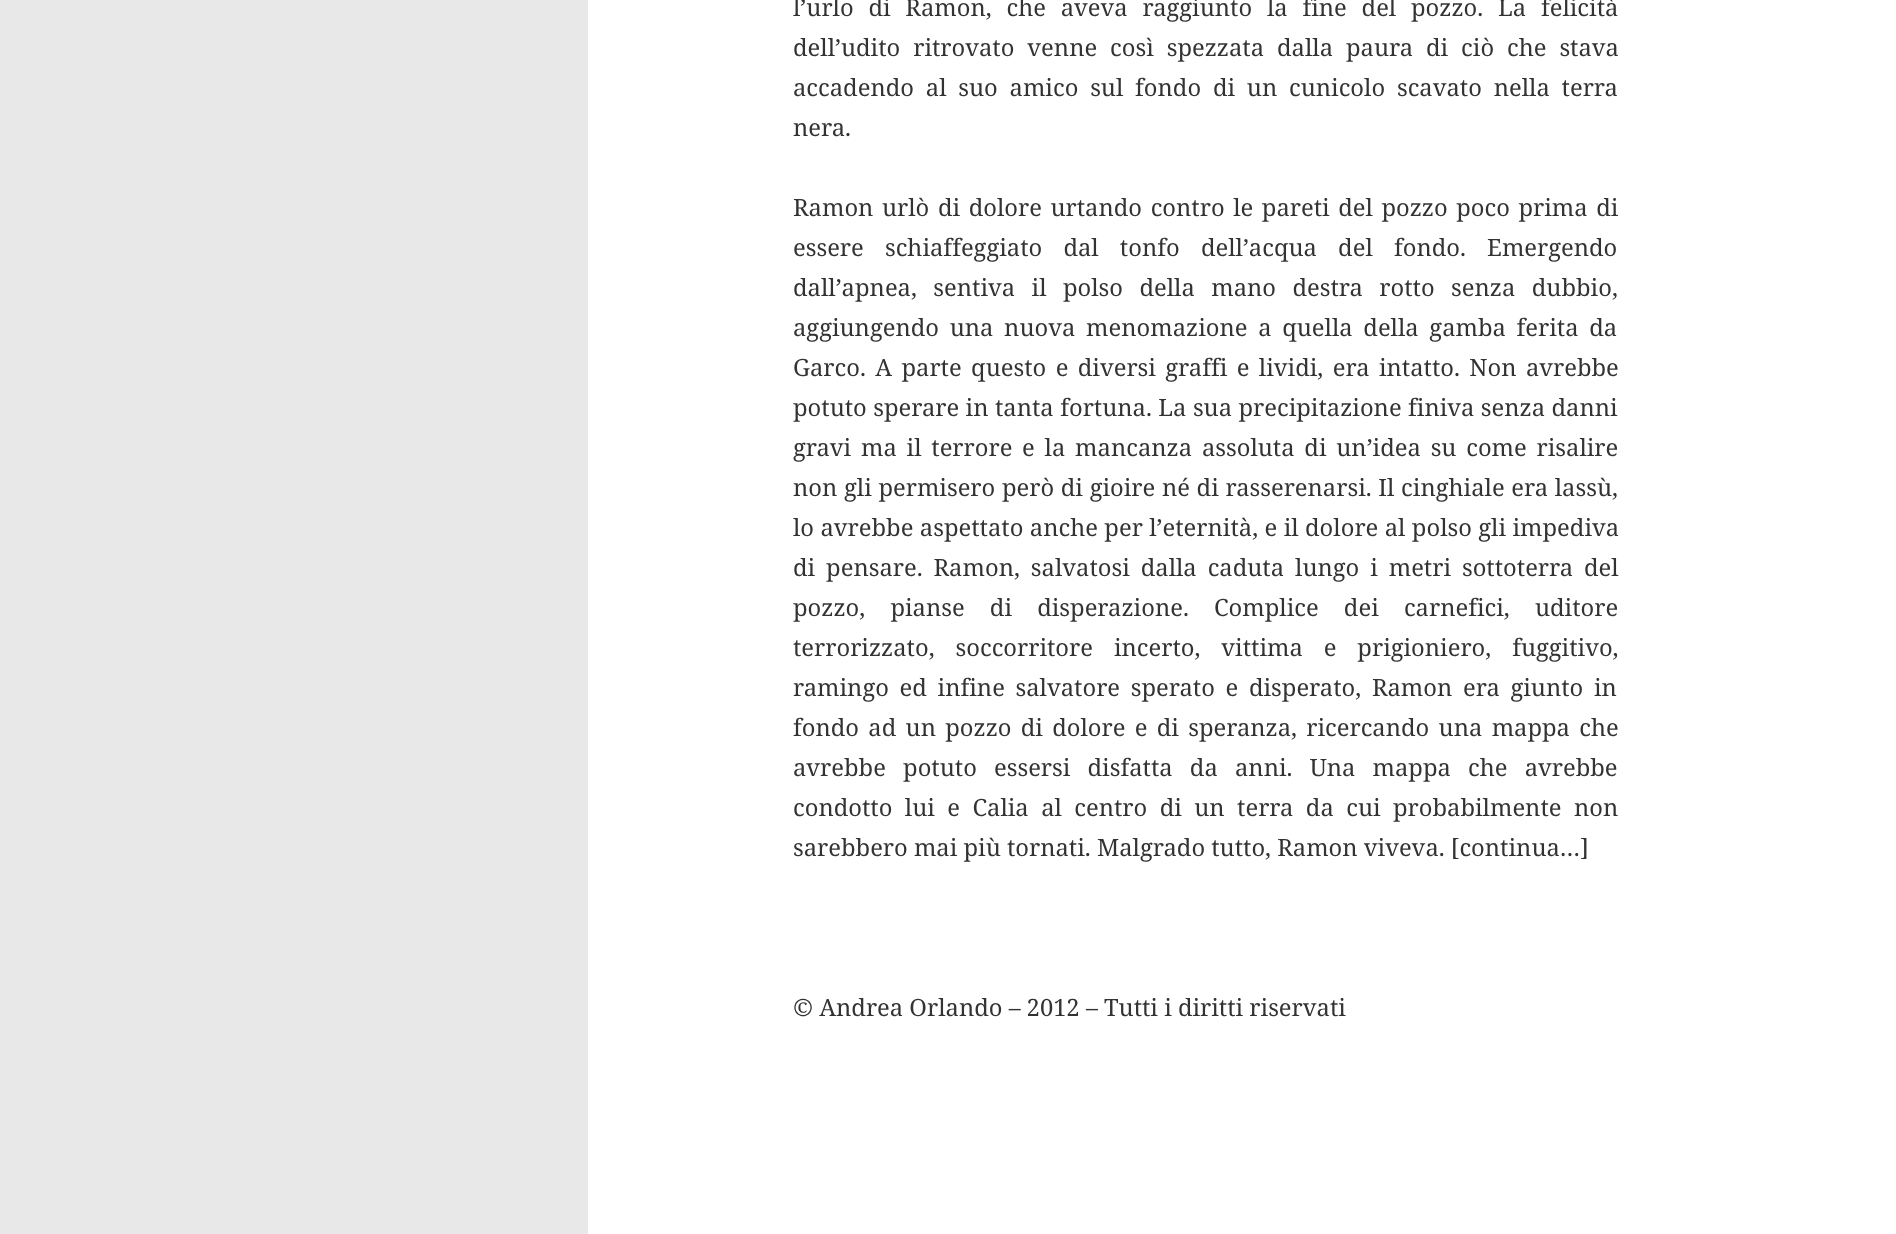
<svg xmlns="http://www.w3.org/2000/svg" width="1896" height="1234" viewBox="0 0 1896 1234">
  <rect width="100%" height="100%" fill="#fff"/>
  <path d="M0 0h588v1234H0z" fill="#e8e8e8"/>
  <g font-family="Noto Serif" font-size="23.75" fill="#333">
    <text x="793" y="16" word-spacing="8.6">l’urlo di Ramon, che aveva raggiunto la fine del pozzo. La felicità</text>
    <text x="793" y="56" word-spacing="6.75">dell’udito ritrovato venne così spezzata dalla paura di ciò che stava</text>
    <text x="793" y="96" word-spacing="5.6">accadendo al suo amico sul fondo di un cunicolo scavato nella terra</text>
    <text x="793" y="136">nera.</text>
    <text x="793" y="216" word-spacing="2.4">Ramon urlò di dolore urtando contro le pareti del pozzo poco prima di</text>
    <text x="793" y="256" word-spacing="15">essere schiaffeggiato dal tonfo dell’acqua del fondo. Emergendo</text>
    <text x="793" y="296" word-spacing="10.25">dall’apnea, sentiva il polso della mano destra rotto senza dubbio,</text>
    <text x="793" y="336" word-spacing="4.5">aggiungendo una nuova menomazione a quella della gamba ferita da</text>
    <text x="793" y="376" word-spacing="3.25">Garco. A parte questo e diversi graffi e lividi, era intatto. Non avrebbe</text>
    <text x="793" y="416" word-spacing="0.25">potuto sperare in tanta fortuna. La sua precipitazione finiva senza danni</text>
    <text x="793" y="456" word-spacing="3.6">gravi ma il terrore e la mancanza assoluta di un’idea su come risalire</text>
    <text x="793" y="496" word-spacing="0.5">non gli permisero però di gioire né di rasserenarsi. Il cinghiale era lassù,</text>
    <text x="793" y="536" word-spacing="0.25">lo avrebbe aspettato anche per l’eternità, e il dolore al polso gli impediva</text>
    <text x="793" y="576" word-spacing="4.75">di pensare. Ramon, salvatosi dalla caduta lungo i metri sottoterra del</text>
    <text x="793" y="616" word-spacing="19">pozzo, pianse di disperazione. Complice dei carnefici, uditore</text>
    <text x="793" y="656" word-spacing="14.75">terrorizzato, soccorritore incerto, vittima e prigioniero, fuggitivo,</text>
    <text x="793" y="696" word-spacing="4.5">ramingo ed infine salvatore sperato e disperato, Ramon era giunto in</text>
    <text x="793" y="736" word-spacing="3.1">fondo ad un pozzo di dolore e di speranza, ricercando una mappa che</text>
    <text x="793" y="776" word-spacing="11">avrebbe potuto essersi disfatta da anni. Una mappa che avrebbe</text>
    <text x="793" y="816" word-spacing="6.25">condotto lui e Calia al centro di un terra da cui probabilmente non</text>
    <text x="793" y="856">sarebbero mai più tornati. Malgrado tutto, Ramon viveva. [continua…]</text>
    <text x="793" y="1016">© Andrea Orlando – 2012 – Tutti i diritti riservati</text>
  </g>
</svg>
